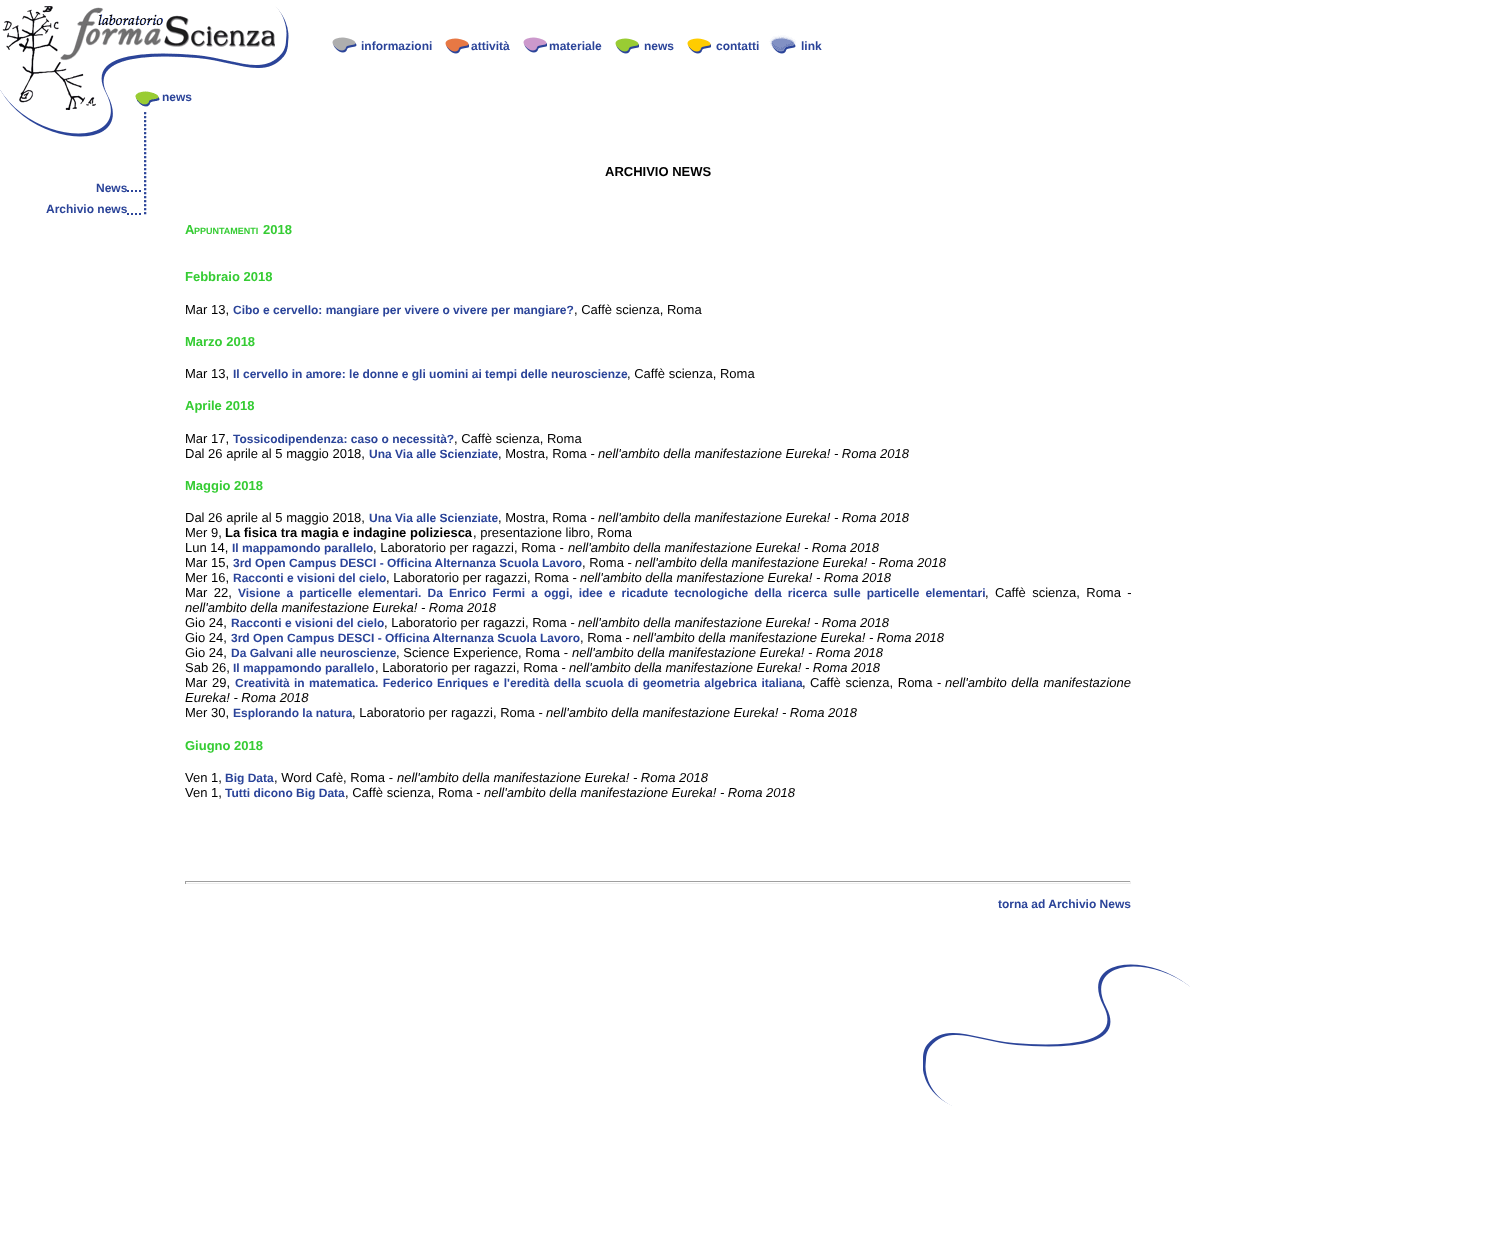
<svg xmlns="http://www.w3.org/2000/svg" width="1489" height="1235" viewBox="0 0 1489 1235">
  <rect width="100%" height="100%" fill="#fff"/>
  <image x="2" y="6" width="287" height="84" href="img/1.png"/>
  <image x="332" y="37" width="25" height="16" href="img/2.png"/>
  <image x="445" y="38" width="24" height="16" href="img/3.png"/>
  <image x="523" y="37" width="24" height="16" href="img/4.png"/>
  <image x="615" y="38" width="24" height="16" href="img/5.png"/>
  <image x="687" y="38" width="24" height="16" href="img/6.png"/>
  <image x="769" y="35" width="27" height="19" href="img/7.png"/>
  <image x="0" y="90" width="113" height="47" href="img/8.png"/>
  <image x="135" y="91" width="25" height="48" href="img/9.png"/>
  <image x="127" y="140" width="20" height="55" href="img/10.png"/>
  <image x="127" y="196" width="20" height="19" href="img/11.png"/>
  <path d="M185 881h946v1H185z" fill="#9f9f9f"/>
  <path d="M1130 881h1v3H1130z" fill="#eee"/>
  <path d="M185 883h946v1H185z" fill="#eee"/>
  <path d="M185 881h1v3H185z" fill="#9f9f9f"/>
  <image x="923" y="964" width="267" height="142" href="img/12.png"/>
  <g font-family="Liberation Sans" font-size="12" font-weight="bold" fill="#2b4499">
    <text x="361" y="50">informazioni</text>
    <text x="471" y="50">attività</text>
    <text x="549" y="50">materiale</text>
    <text x="644" y="50">news</text>
    <text x="716" y="50">contatti</text>
    <text x="801" y="50">link</text>
    <text x="162" y="101">news</text>
    <text x="96" y="192">News</text>
    <text x="46" y="213">Archivio news</text>
  </g>
  <text x="605" y="176" font-family="Liberation Sans" font-size="13" font-weight="bold" fill="#000">ARCHIVIO NEWS</text>
  <text x="185" y="234" font-family="Liberation Sans" font-size="13" font-weight="bold" fill="#35cc33">A</text>
  <text x="194" y="234" font-family="Liberation Sans" font-size="9" font-weight="bold" fill="#35cc33">PPUNTAMENTI</text>
  <g font-family="Liberation Sans" font-size="13" font-weight="bold" fill="#35cc33">
    <text x="263" y="234">2018</text>
    <text x="185" y="281">Febbraio 2018</text>
  </g>
  <text x="185" y="314" font-family="Liberation Sans" font-size="13" fill="#000">Mar 13,</text>
  <text x="233" y="314" font-family="Liberation Sans" font-size="12" font-weight="bold" fill="#2b4499">Cibo e cervello: mangiare per vivere o vivere per mangiare?</text>
  <text x="574" y="314" font-family="Liberation Sans" font-size="13" fill="#000">, Caffè scienza, Roma</text>
  <text x="185" y="346" font-family="Liberation Sans" font-size="13" font-weight="bold" fill="#35cc33">Marzo 2018</text>
  <text x="185" y="378" font-family="Liberation Sans" font-size="13" fill="#000">Mar 13,</text>
  <text x="233" y="378" font-family="Liberation Sans" font-size="12" font-weight="bold" fill="#2b4499">Il cervello in amore: le donne e gli uomini ai tempi delle neuroscienze</text>
  <text x="627" y="378" font-family="Liberation Sans" font-size="13" fill="#000">, Caffè scienza, Roma</text>
  <text x="185" y="410" font-family="Liberation Sans" font-size="13" font-weight="bold" fill="#35cc33">Aprile 2018</text>
  <text x="185" y="443" font-family="Liberation Sans" font-size="13" fill="#000">Mar 17,</text>
  <text x="233" y="443" font-family="Liberation Sans" font-size="12" font-weight="bold" fill="#2b4499">Tossicodipendenza: caso o necessità?</text>
  <g font-family="Liberation Sans" font-size="13" fill="#000">
    <text x="454" y="443">, Caffè scienza, Roma</text>
    <text x="185" y="458">Dal 26 aprile al 5 maggio 2018,</text>
  </g>
  <text x="369" y="458" font-family="Liberation Sans" font-size="12" font-weight="bold" fill="#2b4499">Una Via alle Scienziate</text>
  <text x="498" y="458" font-family="Liberation Sans" font-size="13" fill="#000">, Mostra, Roma -</text>
  <text x="598" y="458" font-family="Liberation Sans" font-size="13" font-style="italic" fill="#000">nell'ambito della manifestazione Eureka! - Roma 2018</text>
  <text x="185" y="490" font-family="Liberation Sans" font-size="13" font-weight="bold" fill="#35cc33">Maggio 2018</text>
  <text x="185" y="522" font-family="Liberation Sans" font-size="13" fill="#000">Dal 26 aprile al 5 maggio 2018,</text>
  <text x="369" y="522" font-family="Liberation Sans" font-size="12" font-weight="bold" fill="#2b4499">Una Via alle Scienziate</text>
  <text x="498" y="522" font-family="Liberation Sans" font-size="13" fill="#000">, Mostra, Roma -</text>
  <text x="598" y="522" font-family="Liberation Sans" font-size="13" font-style="italic" fill="#000">nell'ambito della manifestazione Eureka! - Roma 2018</text>
  <text x="185" y="537" font-family="Liberation Sans" font-size="13" fill="#000">Mer 9,</text>
  <text x="225" y="537" font-family="Liberation Sans" font-size="13" font-weight="bold" fill="#000">La fisica tra magia e indagine poliziesca</text>
  <g font-family="Liberation Sans" font-size="13" fill="#000">
    <text x="473" y="537">, presentazione libro, Roma</text>
    <text x="185" y="552">Lun 14,</text>
  </g>
  <text x="232" y="552" font-family="Liberation Sans" font-size="12" font-weight="bold" fill="#2b4499">Il mappamondo parallelo</text>
  <text x="373" y="552" font-family="Liberation Sans" font-size="13" fill="#000">, Laboratorio per ragazzi, Roma -</text>
  <text x="568" y="552" font-family="Liberation Sans" font-size="13" font-style="italic" fill="#000">nell'ambito della manifestazione Eureka! - Roma 2018</text>
  <text x="185" y="567" font-family="Liberation Sans" font-size="13" fill="#000">Mar 15,</text>
  <text x="233" y="567" font-family="Liberation Sans" font-size="12" font-weight="bold" fill="#2b4499">3rd Open Campus DESCI - Officina Alternanza Scuola Lavoro</text>
  <text x="582" y="567" font-family="Liberation Sans" font-size="13" fill="#000">, Roma -</text>
  <text x="635" y="567" font-family="Liberation Sans" font-size="13" font-style="italic" fill="#000">nell'ambito della manifestazione Eureka! - Roma 2018</text>
  <text x="185" y="582" font-family="Liberation Sans" font-size="13" fill="#000">Mer 16,</text>
  <text x="233" y="582" font-family="Liberation Sans" font-size="12" font-weight="bold" fill="#2b4499">Racconti e visioni del cielo</text>
  <text x="386" y="582" font-family="Liberation Sans" font-size="13" fill="#000">, Laboratorio per ragazzi, Roma -</text>
  <text x="580" y="582" font-family="Liberation Sans" font-size="13" font-style="italic" fill="#000">nell'ambito della manifestazione Eureka! - Roma 2018</text>
  <text x="185" y="597" word-spacing="2.75" font-family="Liberation Sans" font-size="13" fill="#000">Mar 22,</text>
  <text x="238" y="597" word-spacing="2.75" font-family="Liberation Sans" font-size="12" font-weight="bold" fill="#2b4499">Visione a particelle elementari. Da Enrico Fermi a oggi, idee e ricadute tecnologiche della ricerca sulle particelle elementari</text>
  <g font-family="Liberation Sans" font-size="13" fill="#000">
    <text x="985" y="597">,</text>
    <text x="995" y="597" word-spacing="2.75">Caffè scienza, Roma -</text>
  </g>
  <text x="185" y="612" font-family="Liberation Sans" font-size="13" font-style="italic" fill="#000">nell'ambito della manifestazione Eureka! - Roma 2018</text>
  <text x="185" y="627" font-family="Liberation Sans" font-size="13" fill="#000">Gio 24,</text>
  <text x="231" y="627" font-family="Liberation Sans" font-size="12" font-weight="bold" fill="#2b4499">Racconti e visioni del cielo</text>
  <text x="384" y="627" font-family="Liberation Sans" font-size="13" fill="#000">, Laboratorio per ragazzi, Roma -</text>
  <text x="578" y="627" font-family="Liberation Sans" font-size="13" font-style="italic" fill="#000">nell'ambito della manifestazione Eureka! - Roma 2018</text>
  <text x="185" y="642" font-family="Liberation Sans" font-size="13" fill="#000">Gio 24,</text>
  <text x="231" y="642" font-family="Liberation Sans" font-size="12" font-weight="bold" fill="#2b4499">3rd Open Campus DESCI - Officina Alternanza Scuola Lavoro</text>
  <text x="580" y="642" font-family="Liberation Sans" font-size="13" fill="#000">, Roma -</text>
  <text x="633" y="642" font-family="Liberation Sans" font-size="13" font-style="italic" fill="#000">nell'ambito della manifestazione Eureka! - Roma 2018</text>
  <text x="185" y="657" font-family="Liberation Sans" font-size="13" fill="#000">Gio 24,</text>
  <text x="231" y="657" font-family="Liberation Sans" font-size="12" font-weight="bold" fill="#2b4499">Da Galvani alle neuroscienze</text>
  <text x="396" y="657" font-family="Liberation Sans" font-size="13" fill="#000">, Science Experience, Roma -</text>
  <text x="572" y="657" font-family="Liberation Sans" font-size="13" font-style="italic" fill="#000">nell'ambito della manifestazione Eureka! - Roma 2018</text>
  <text x="185" y="672" font-family="Liberation Sans" font-size="13" fill="#000">Sab 26,</text>
  <text x="233" y="672" font-family="Liberation Sans" font-size="12" font-weight="bold" fill="#2b4499">Il mappamondo parallelo</text>
  <text x="375" y="672" font-family="Liberation Sans" font-size="13" fill="#000">, Laboratorio per ragazzi, Roma -</text>
  <text x="569" y="672" font-family="Liberation Sans" font-size="13" font-style="italic" fill="#000">nell'ambito della manifestazione Eureka! - Roma 2018</text>
  <text x="185" y="687" word-spacing="1" font-family="Liberation Sans" font-size="13" fill="#000">Mar 29,</text>
  <text x="235" y="687" word-spacing="1" font-family="Liberation Sans" font-size="12" font-weight="bold" fill="#2b4499">Creatività in matematica. Federico Enriques e l'eredità della scuola di geometria algebrica italiana</text>
  <g font-family="Liberation Sans" font-size="13" fill="#000">
    <text x="802" y="687">,</text>
    <text x="810" y="687" word-spacing="1">Caffè scienza, Roma -</text>
  </g>
  <g font-family="Liberation Sans" font-size="13" font-style="italic" fill="#000">
    <text x="945" y="687" word-spacing="1">nell'ambito della manifestazione</text>
    <text x="185" y="702">Eureka! - Roma 2018</text>
  </g>
  <text x="185" y="717" font-family="Liberation Sans" font-size="13" fill="#000">Mer 30,</text>
  <text x="233" y="717" font-family="Liberation Sans" font-size="12" font-weight="bold" fill="#2b4499">Esplorando la natura</text>
  <text x="352" y="717" font-family="Liberation Sans" font-size="13" fill="#000">, Laboratorio per ragazzi, Roma -</text>
  <text x="546" y="717" font-family="Liberation Sans" font-size="13" font-style="italic" fill="#000">nell'ambito della manifestazione Eureka! - Roma 2018</text>
  <text x="185" y="750" font-family="Liberation Sans" font-size="13" font-weight="bold" fill="#35cc33">Giugno 2018</text>
  <text x="185" y="782" font-family="Liberation Sans" font-size="13" fill="#000">Ven 1,</text>
  <text x="225" y="782" font-family="Liberation Sans" font-size="12" font-weight="bold" fill="#2b4499">Big Data</text>
  <text x="274" y="782" font-family="Liberation Sans" font-size="13" fill="#000">, Word Cafè, Roma -</text>
  <text x="397" y="782" font-family="Liberation Sans" font-size="13" font-style="italic" fill="#000">nell'ambito della manifestazione Eureka! - Roma 2018</text>
  <text x="185" y="797" font-family="Liberation Sans" font-size="13" fill="#000">Ven 1,</text>
  <text x="225" y="797" font-family="Liberation Sans" font-size="12" font-weight="bold" fill="#2b4499">Tutti dicono Big Data</text>
  <text x="345" y="797" font-family="Liberation Sans" font-size="13" fill="#000">, Caffè scienza, Roma -</text>
  <text x="484" y="797" font-family="Liberation Sans" font-size="13" font-style="italic" fill="#000">nell'ambito della manifestazione Eureka! - Roma 2018</text>
  <text x="998" y="908" font-family="Liberation Sans" font-size="12" font-weight="bold" fill="#2b4499">torna ad Archivio News</text>
</svg>
